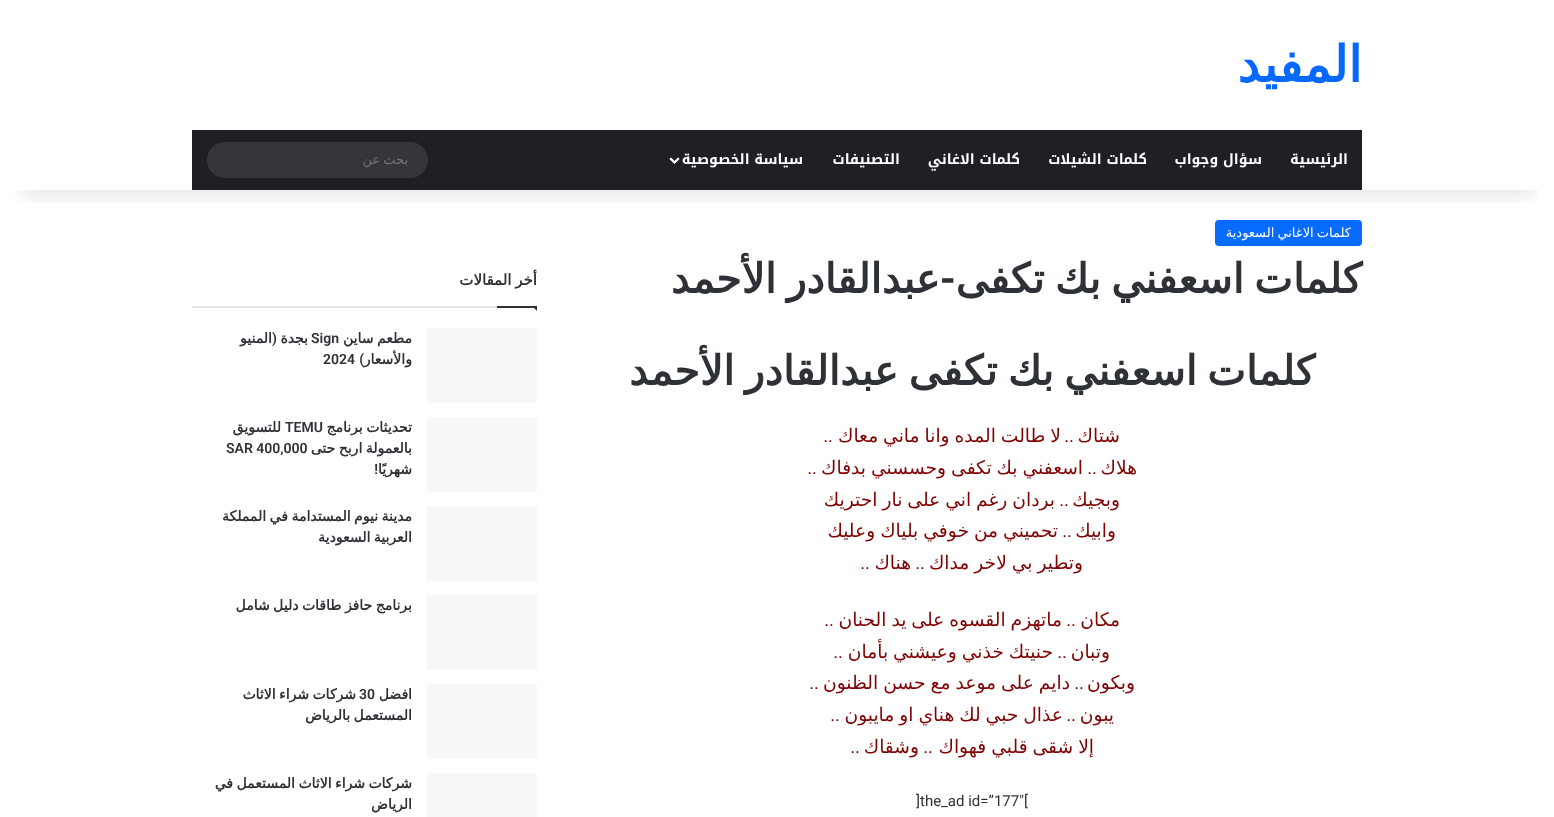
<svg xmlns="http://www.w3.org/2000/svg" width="1554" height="817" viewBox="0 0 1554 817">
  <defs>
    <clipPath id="clip1"><path d="M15 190h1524v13H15z"/></clipPath>
  </defs>
  <rect width="100%" height="100%" fill="#fff"/>
  <rect x="1215" y="220" width="147" height="26" rx="4" fill="#086bff"/>
  <g clip-path="url(#clip1)">
    <path d="M20 45h1514v150H20z" fill="#0000001a" filter="blur(10px)"/>
  </g>
  <path d="M192 130h1170v60H192z" fill="#1f2024"/>
  <image x="669" y="157" width="11" height="7" href="img/1.png"/>
  <rect x="207" y="142" width="221" height="36" rx="18" fill="#35363a"/>
  <path d="M192 306h305v2H192z" fill="#e6e6e6"/>
  <path d="M532 306H537V311Z" fill="#2e3136"/>
  <path d="M497 306h40v2H497z" fill="#2e3136"/>
  <path d="M427 328h110v75H427z" fill="#f7f7f7"/>
  <path d="M427 417h110v75H427z" fill="#f7f7f7"/>
  <path d="M427 506h110v75H427z" fill="#f7f7f7"/>
  <path d="M427 595h110v75H427z" fill="#f7f7f7"/>
  <path d="M427 684h110v75H427z" fill="#f7f7f7"/>
  <path d="M427 773h110v44H427z" fill="#f7f7f7"/>
  <text x="1362" y="82" font-family="DejaVu Sans" font-size="50" font-weight="bold" direction="rtl" fill="#0669ff">المفيد</text>
  <g font-family="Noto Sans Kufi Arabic" font-size="14" font-weight="bold" direction="rtl" fill="#fff">
    <text x="1348" y="164">الرئيسية</text>
    <text x="1262" y="164">سؤال وجواب</text>
    <text x="1147" y="164">كلمات الشيلات</text>
    <text x="1020" y="164">كلمات الاغاني</text>
    <text x="900" y="164">التصنيفات</text>
    <text x="803" y="164">سياسة الخصوصية</text>
  </g>
  <text x="408" y="164" word-spacing="-1" font-family="DejaVu Sans" font-size="13" direction="rtl" fill="#757575">بحث عن</text>
  <text x="1351" y="237" word-spacing="-1" font-family="DejaVu Sans" font-size="13" direction="rtl" fill="#fff">كلمات الاغاني السعودية</text>
  <text x="1362" y="293" word-spacing="-2.75" font-family="DejaVu Sans" font-size="41" font-weight="bold" direction="rtl" fill="#2e3136">كلمات اسعفني بك تكفى</text>
  <text x="956" y="293" font-family="Roboto" font-size="41" font-weight="bold" direction="rtl" fill="#2e3136">-</text>
  <g font-family="DejaVu Sans" font-size="41" font-weight="bold" direction="rtl" fill="#2e3136">
    <text x="940" y="293" word-spacing="-2.75">عبدالقادر الأحمد</text>
    <text x="1315" y="385" word-spacing="-2.75">كلمات اسعفني بك تكفى عبدالقادر الأحمد</text>
  </g>
  <text x="1120" y="442" font-family="DejaVu Sans" font-size="18.7" direction="rtl" fill="#810303">شتاك</text>
  <text x="1074" y="442" font-family="Roboto" font-size="18.7" direction="rtl" fill="#810303">..</text>
  <text x="1061" y="442" word-spacing="-1" font-family="DejaVu Sans" font-size="18.7" direction="rtl" fill="#810303">لا طالت المده وانا ماني معاك</text>
  <text x="833" y="442" font-family="Roboto" font-size="18.7" direction="rtl" fill="#810303">..</text>
  <text x="1137" y="474" font-family="DejaVu Sans" font-size="18.7" direction="rtl" fill="#810303">هلاك</text>
  <text x="1097" y="474" font-family="Roboto" font-size="18.7" direction="rtl" fill="#810303">..</text>
  <text x="1083" y="474" word-spacing="-1" font-family="DejaVu Sans" font-size="18.7" direction="rtl" fill="#810303">اسعفني بك تكفى وحسسني بدفاك</text>
  <text x="817" y="474" font-family="Roboto" font-size="18.7" direction="rtl" fill="#810303">..</text>
  <text x="1120" y="506" font-family="DejaVu Sans" font-size="18.7" direction="rtl" fill="#810303">وبجيك</text>
  <text x="1069" y="506" font-family="Roboto" font-size="18.7" direction="rtl" fill="#810303">..</text>
  <g font-family="DejaVu Sans" font-size="18.7" direction="rtl" fill="#810303">
    <text x="1055" y="506" word-spacing="-1">بردان رغم اني على نار احتريك</text>
    <text x="1116" y="537">وابيك</text>
  </g>
  <text x="1072" y="537" font-family="Roboto" font-size="18.7" direction="rtl" fill="#810303">..</text>
  <g font-family="DejaVu Sans" font-size="18.7" direction="rtl" fill="#810303">
    <text x="1058" y="537" word-spacing="-1">تحميني من خوفي بلياك وعليك</text>
    <text x="1083" y="569" word-spacing="-1">وتطير بي لاخر مداك</text>
  </g>
  <text x="925" y="569" font-family="Roboto" font-size="18.7" direction="rtl" fill="#810303">..</text>
  <text x="911" y="569" font-family="DejaVu Sans" font-size="18.7" direction="rtl" fill="#810303">هناك</text>
  <text x="870" y="569" font-family="Roboto" font-size="18.7" direction="rtl" fill="#810303">..</text>
  <text x="1120" y="626" font-family="DejaVu Sans" font-size="18.7" direction="rtl" fill="#810303">مكان</text>
  <text x="1076" y="626" font-family="Roboto" font-size="18.7" direction="rtl" fill="#810303">..</text>
  <text x="1062" y="626" word-spacing="-1" font-family="DejaVu Sans" font-size="18.7" direction="rtl" fill="#810303">ماتهزم القسوه على يد الحنان</text>
  <text x="834" y="626" font-family="Roboto" font-size="18.7" direction="rtl" fill="#810303">..</text>
  <text x="1110" y="658" font-family="DejaVu Sans" font-size="18.7" direction="rtl" fill="#810303">وتبان</text>
  <text x="1067" y="658" font-family="Roboto" font-size="18.7" direction="rtl" fill="#810303">..</text>
  <text x="1053" y="658" word-spacing="-1" font-family="DejaVu Sans" font-size="18.7" direction="rtl" fill="#810303">حنيتك خذني وعيشني بأمان</text>
  <text x="843" y="658" font-family="Roboto" font-size="18.7" direction="rtl" fill="#810303">..</text>
  <text x="1135" y="689" font-family="DejaVu Sans" font-size="18.7" direction="rtl" fill="#810303">وبكون</text>
  <text x="1084" y="689" font-family="Roboto" font-size="18.7" direction="rtl" fill="#810303">..</text>
  <text x="1070" y="689" word-spacing="-1" font-family="DejaVu Sans" font-size="18.7" direction="rtl" fill="#810303">دايم على موعد مع حسن الظنون</text>
  <text x="819" y="689" font-family="Roboto" font-size="18.7" direction="rtl" fill="#810303">..</text>
  <text x="1114" y="721" font-family="DejaVu Sans" font-size="18.7" direction="rtl" fill="#810303">يبون</text>
  <text x="1076" y="721" font-family="Roboto" font-size="18.7" direction="rtl" fill="#810303">..</text>
  <text x="1063" y="721" word-spacing="-1" font-family="DejaVu Sans" font-size="18.7" direction="rtl" fill="#810303">عذال حبي لك هناي او مايبون</text>
  <text x="840" y="721" font-family="Roboto" font-size="18.7" direction="rtl" fill="#810303">..</text>
  <text x="1094" y="753" word-spacing="-1" font-family="DejaVu Sans" font-size="18.7" direction="rtl" fill="#810303">إلا شقى قلبي فهواك</text>
  <text x="933" y="753" font-family="Roboto" font-size="18.7" direction="rtl" fill="#810303">..</text>
  <text x="919" y="753" font-family="DejaVu Sans" font-size="18.7" direction="rtl" fill="#810303">وشقاك</text>
  <text x="860" y="753" font-family="Roboto" font-size="18.7" direction="rtl" fill="#810303">..</text>
  <text x="916" y="806" font-family="Roboto" font-size="15" fill="#2e3136">]the_ad id=”177″[</text>
  <text x="537" y="285" word-spacing="-1" font-family="DejaVu Sans" font-size="15" font-weight="bold" direction="rtl" fill="#2e3136">أخر المقالات</text>
  <text x="412" y="343" word-spacing="-1" font-family="DejaVu Sans" font-size="14" font-weight="bold" direction="rtl" fill="#2e3136">مطعم ساين</text>
  <text x="311" y="343" font-family="Roboto" font-size="14" font-weight="600" fill="#2e3136">Sign</text>
  <text x="308" y="343" font-family="DejaVu Sans" font-size="14" font-weight="bold" direction="rtl" fill="#2e3136">بجدة</text>
  <text x="277" y="343" font-family="Roboto" font-size="14" font-weight="600" direction="rtl" fill="#2e3136">(</text>
  <text x="272" y="343" font-family="DejaVu Sans" font-size="14" font-weight="bold" direction="rtl" fill="#2e3136">المنيو</text>
  <text x="364" y="364" font-family="Roboto" font-size="14" font-weight="600" direction="rtl" fill="#2e3136">)</text>
  <text x="412" y="364" font-family="DejaVu Sans" font-size="14" font-weight="bold" direction="rtl" fill="#2e3136">والأسعار</text>
  <text x="323" y="364" font-family="Roboto" font-size="14" font-weight="600" fill="#2e3136">2024</text>
  <text x="412" y="432" word-spacing="-1" font-family="DejaVu Sans" font-size="14" font-weight="bold" direction="rtl" fill="#2e3136">تحديثات برنامج</text>
  <text x="285" y="432" font-family="Roboto" font-size="14" font-weight="600" fill="#2e3136">TEMU</text>
  <g font-family="DejaVu Sans" font-size="14" font-weight="bold" direction="rtl" fill="#2e3136">
    <text x="281" y="432">للتسويق</text>
    <text x="412" y="453" word-spacing="-1">بالعمولة اربح حتى</text>
  </g>
  <text x="226" y="453" font-family="Roboto" font-size="14" font-weight="600" fill="#2e3136">SAR 400,000</text>
  <text x="412" y="474" font-family="DejaVu Sans" font-size="14" font-weight="bold" direction="rtl" fill="#2e3136">شهريًا</text>
  <text x="378" y="474" font-family="Roboto" font-size="14" font-weight="600" direction="rtl" fill="#2e3136">!</text>
  <g font-family="DejaVu Sans" font-size="14" font-weight="bold" direction="rtl" fill="#2e3136">
    <text x="412" y="521" word-spacing="-1">مدينة نيوم المستدامة في المملكة</text>
    <text x="412" y="542" word-spacing="-1">العربية السعودية</text>
    <text x="412" y="610" word-spacing="-1">برنامج حافز طاقات دليل شامل</text>
    <text x="412" y="699">افضل</text>
  </g>
  <text x="359" y="699" font-family="Roboto" font-size="14" font-weight="600" fill="#2e3136">30</text>
  <g font-family="DejaVu Sans" font-size="14" font-weight="bold" direction="rtl" fill="#2e3136">
    <text x="356" y="699" word-spacing="-1">شركات شراء الاثاث</text>
    <text x="412" y="720" word-spacing="-1">المستعمل بالرياض</text>
    <text x="412" y="788" word-spacing="-1">شركات شراء الاثاث المستعمل في</text>
    <text x="412" y="809">الرياض</text>
  </g>
</svg>
